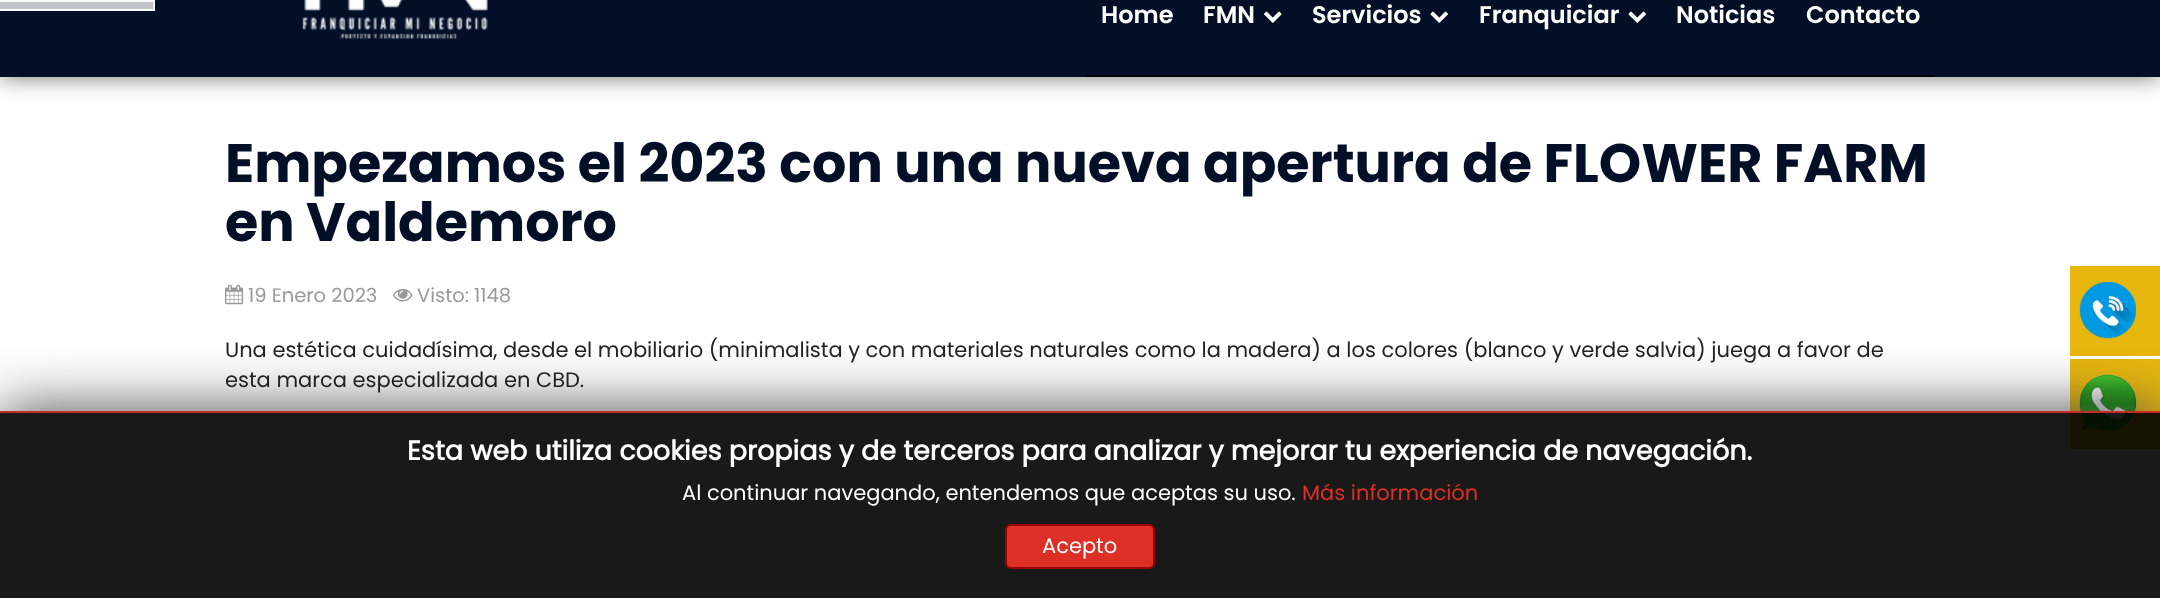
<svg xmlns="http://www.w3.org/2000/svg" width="2160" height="598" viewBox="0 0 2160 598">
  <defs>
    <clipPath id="clip1"><path d="M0 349h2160v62H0z"/></clipPath>
  </defs>
  <rect width="100%" height="100%" fill="#fff"/>
  <path d="M0 -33h2160v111H0z" fill="#00000080" filter="blur(11px)"/>
  <path d="M0 0h2160v77H0z" fill="#030e27"/>
  <path d="M0 2h153v7H0z" fill="#818693"/>
  <path d="M0 9h155v2H0z" fill="#d9dbdf"/>
  <path d="M0 2h155v9H0z" fill="#ffffff80"/>
  <path d="M0 0h155v2H0z" fill="#f9fafa"/>
  <path d="M0 9h155v2H0z" fill="#ffffffb3"/>
  <path d="M153 2h2v7H153z" fill="#eff0f1"/>
  <image x="302" y="0" width="186" height="39" href="img/1.png"/>
  <path d="M1086 75h849v2H1086z" fill="#010308"/>
  <image x="1264" y="11" width="18" height="12" href="img/2.png"/>
  <image x="1430" y="11" width="18" height="12" href="img/3.png"/>
  <image x="1628" y="11" width="18" height="12" href="img/3.png"/>
  <image x="225" y="284" width="19" height="21" href="img/4.png"/>
  <image x="393" y="289" width="20" height="13" href="img/5.png"/>
  <path d="M2070 266h90v90H2070z" fill="#e8b70d"/>
  <image x="2079" y="282" width="57" height="57" href="img/6.png"/>
  <path d="M2070 359h90v90H2070z" fill="#e8b70d"/>
  <image x="2079" y="374" width="58" height="58" href="img/7.png"/>
  <g clip-path="url(#clip1)">
    <path d="M0 411h2160v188H0z" fill="#444" filter="blur(30px)"/>
  </g>
  <path d="M0 411h2160v187H0z" fill="#000000e6"/>
  <path d="M0 411h2160v2H0z" fill="#dd2f26e6"/>
  <rect x="1006" y="525" width="148" height="43" rx="5" fill="#dd2f26" stroke="#9c0404" stroke-width="2"/>
  <g font-family="Poppins" font-size="24" font-weight="600" fill="#fff">
    <text x="1101" y="23">Home</text>
    <text x="1203" y="23">FMN</text>
    <text x="1312" y="23">Servicios</text>
    <text x="1479" y="23">Franquiciar</text>
    <text x="1676" y="23">Noticias</text>
    <text x="1806" y="23">Contacto</text>
  </g>
  <g font-family="Poppins" font-size="54" font-weight="bold" fill="#030e27">
    <text x="225" y="182">Empezamos el 2023 con una nueva apertura de FLOWER FARM</text>
    <text x="225" y="241">en Valdemoro</text>
  </g>
  <g font-family="Poppins" font-size="19.5" fill="#999">
    <text x="248" y="302">19 Enero 2023</text>
    <text x="417" y="302">Visto: 1148</text>
  </g>
  <g font-family="Poppins" font-size="21" fill="#222">
    <text x="225" y="357">Una estética cuidadísima, desde el mobiliario (minimalista y con materiales naturales como la madera) a los colores (blanco y verde salvia) juega a favor de</text>
    <text x="225" y="387">esta marca especializada en CBD.</text>
  </g>
  <text x="407" y="460" font-family="'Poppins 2'" font-size="27" font-weight="bold" fill="#fff">Esta web utiliza cookies propias y de terceros para analizar y mejorar tu experiencia de navegación.</text>
  <text x="682" y="500" font-family="Poppins" font-size="21" fill="#fff">Al continuar navegando, entendemos que aceptas su uso.</text>
  <text x="1302" y="500" font-family="Poppins" font-size="21" fill="#dd2f26">Más información</text>
  <text x="1042" y="553" font-family="Poppins" font-size="21" fill="#fff">Acepto</text>
</svg>
